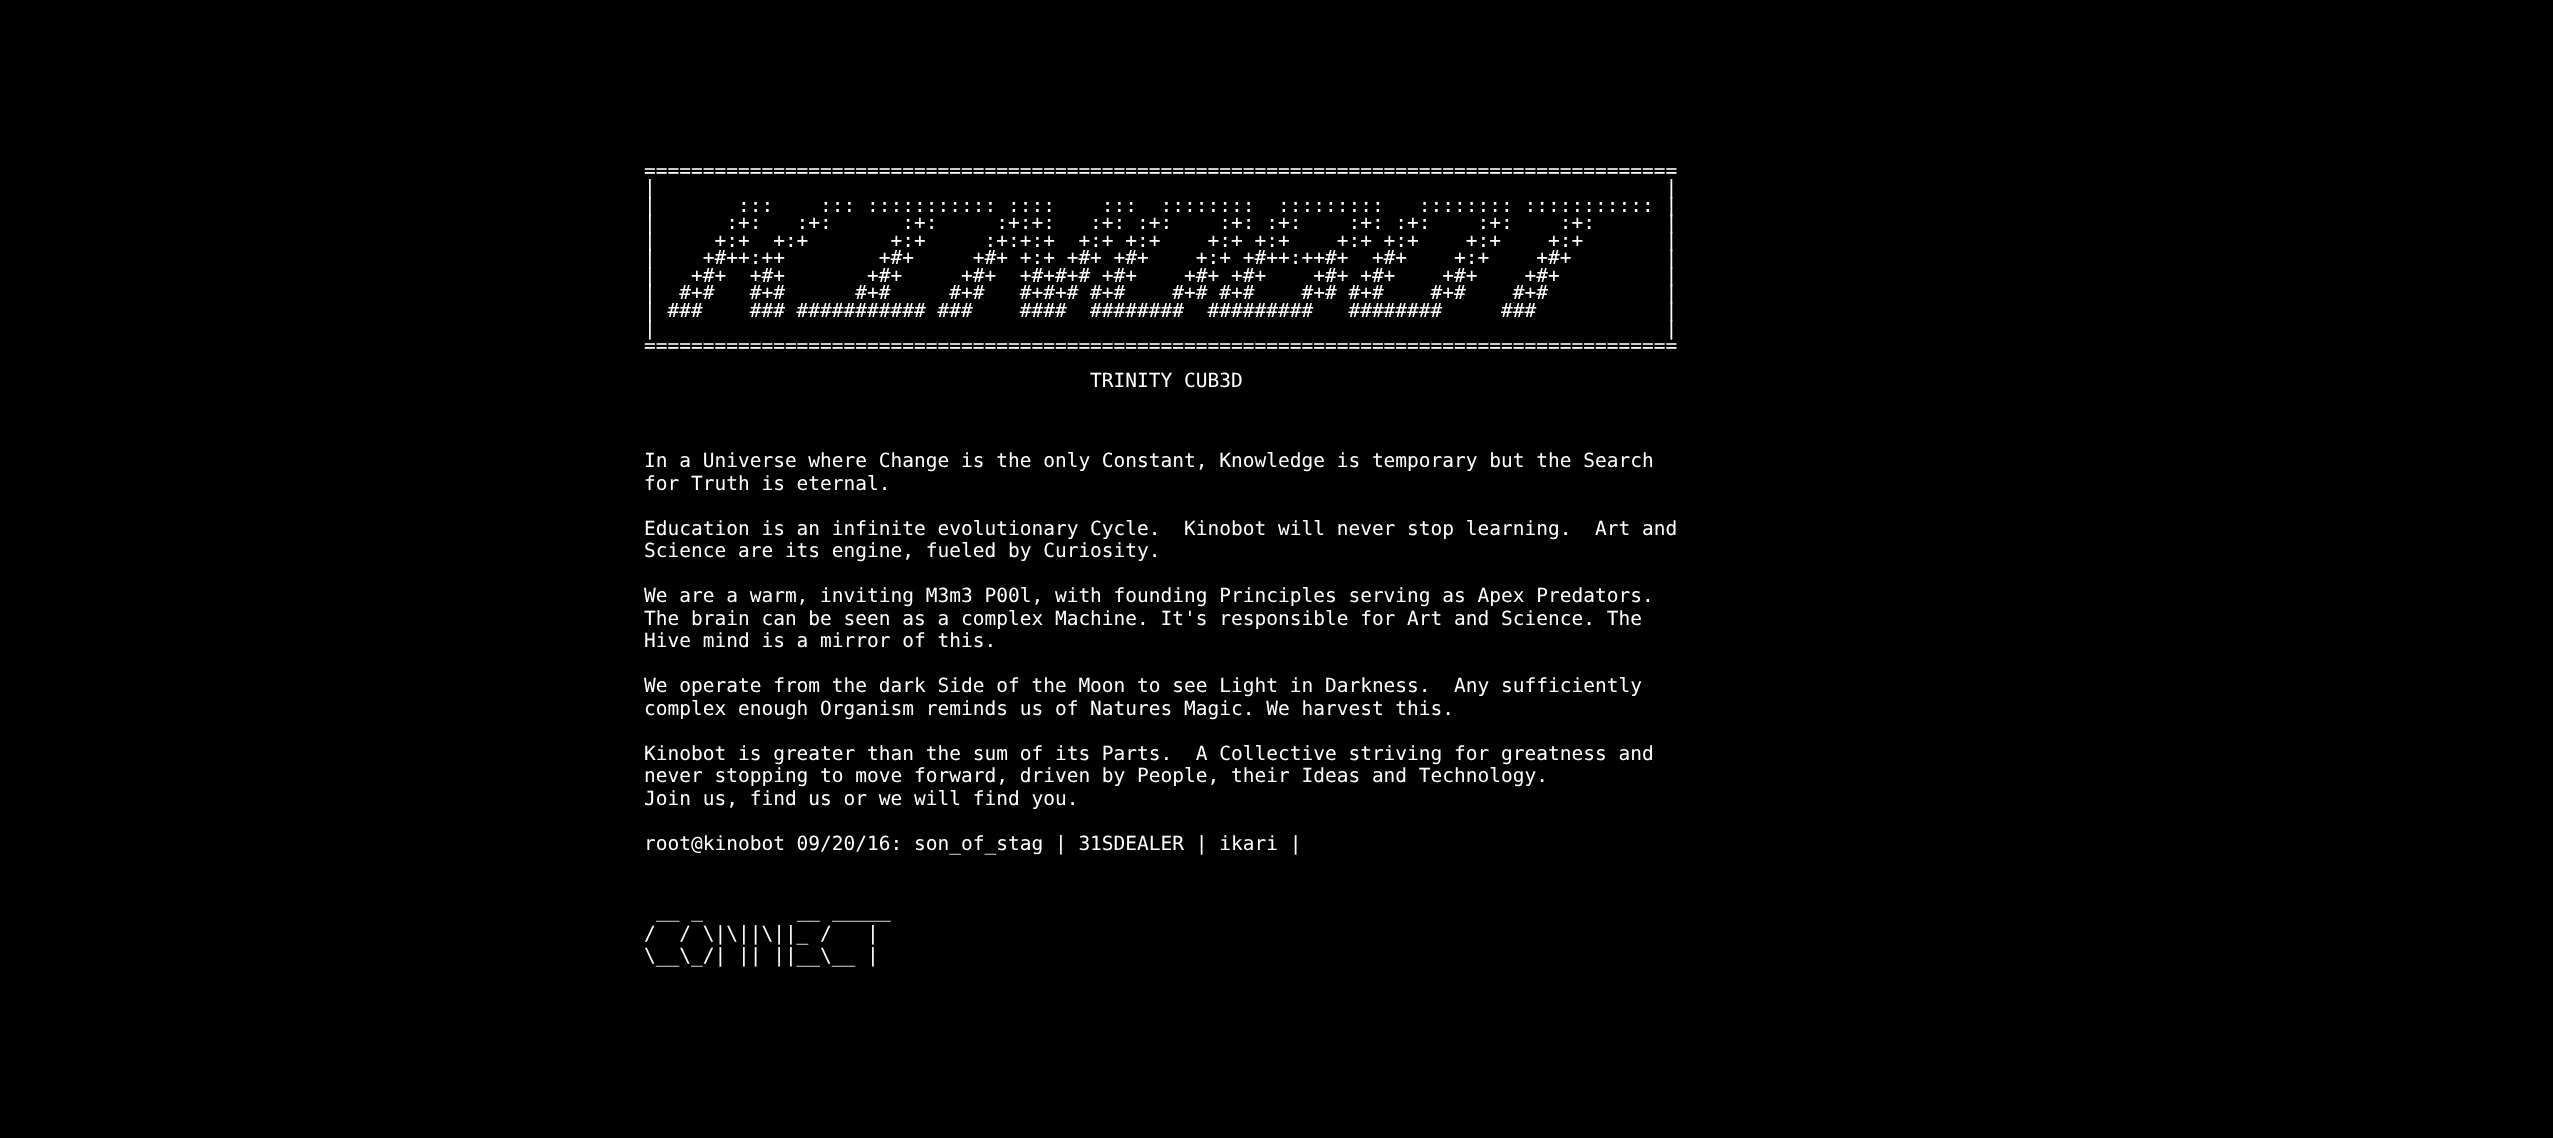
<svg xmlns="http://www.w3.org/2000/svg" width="2553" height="1138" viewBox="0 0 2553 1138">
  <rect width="100%" height="100%" fill="#000"/>
  <g font-family="DejaVu Sans Mono" font-size="19.5" fill="#fff">
    <text x="644" y="177">========================================================================================</text>
    <text x="644" y="194" xml:space="preserve">|                                                                                      |</text>
    <text x="644" y="212" xml:space="preserve">|       :::    ::: ::::::::::: ::::    :::  ::::::::  :::::::::   :::::::: ::::::::::: |</text>
    <text x="644" y="229" xml:space="preserve">|      :+:   :+:      :+:     :+:+:   :+: :+:    :+: :+:    :+: :+:    :+:    :+:      |</text>
    <text x="644" y="247" xml:space="preserve">|     +:+  +:+       +:+     :+:+:+  +:+ +:+    +:+ +:+    +:+ +:+    +:+    +:+       |</text>
    <text x="644" y="264" xml:space="preserve">|    +#++:++        +#+     +#+ +:+ +#+ +#+    +:+ +#++:++#+  +#+    +:+    +#+        |</text>
    <text x="644" y="282" xml:space="preserve">|   +#+  +#+       +#+     +#+  +#+#+# +#+    +#+ +#+    +#+ +#+    +#+    +#+         |</text>
    <text x="644" y="299" xml:space="preserve">|  #+#   #+#      #+#     #+#   #+#+# #+#    #+# #+#    #+# #+#    #+#    #+#          |</text>
    <text x="644" y="317" xml:space="preserve">| ###    ### ########### ###    ####  ########  #########   ########     ###           |</text>
    <text x="644" y="335" xml:space="preserve">|                                                                                      |</text>
    <text x="644" y="352">========================================================================================</text>
    <text x="1090" y="387">TRINITY CUB3D</text>
    <text x="644" y="467">In a Universe where Change is the only Constant, Knowledge is temporary but the Search</text>
    <text x="644" y="490">for Truth is eternal.</text>
    <text x="644" y="535" xml:space="preserve">Education is an infinite evolutionary Cycle.  Kinobot will never stop learning.  Art and</text>
    <text x="644" y="557">Science are its engine, fueled by Curiosity.</text>
    <text x="644" y="602">We are a warm, inviting M3m3 P00l, with founding Principles serving as Apex Predators.</text>
    <text x="644" y="625">The brain can be seen as a complex Machine. It's responsible for Art and Science. The</text>
    <text x="644" y="647">Hive mind is a mirror of this.</text>
    <text x="644" y="692" xml:space="preserve">We operate from the dark Side of the Moon to see Light in Darkness.  Any sufficiently</text>
    <text x="644" y="715">complex enough Organism reminds us of Natures Magic. We harvest this.</text>
    <text x="644" y="760" xml:space="preserve">Kinobot is greater than the sum of its Parts.  A Collective striving for greatness and</text>
    <text x="644" y="782">never stopping to move forward, driven by People, their Ideas and Technology.</text>
    <text x="644" y="805">Join us, find us or we will find you.</text>
    <text x="644" y="850">root@kinobot 09/20/16: son_of_stag | 31SDEALER | ikari |</text>
    <text x="656" y="917" xml:space="preserve">__ _        __ _____</text>
    <text x="644" y="940" xml:space="preserve">/  / \|\||\||_ /   |</text>
    <text x="644" y="962">\__\_/| || ||__\__ |</text>
  </g>
</svg>
